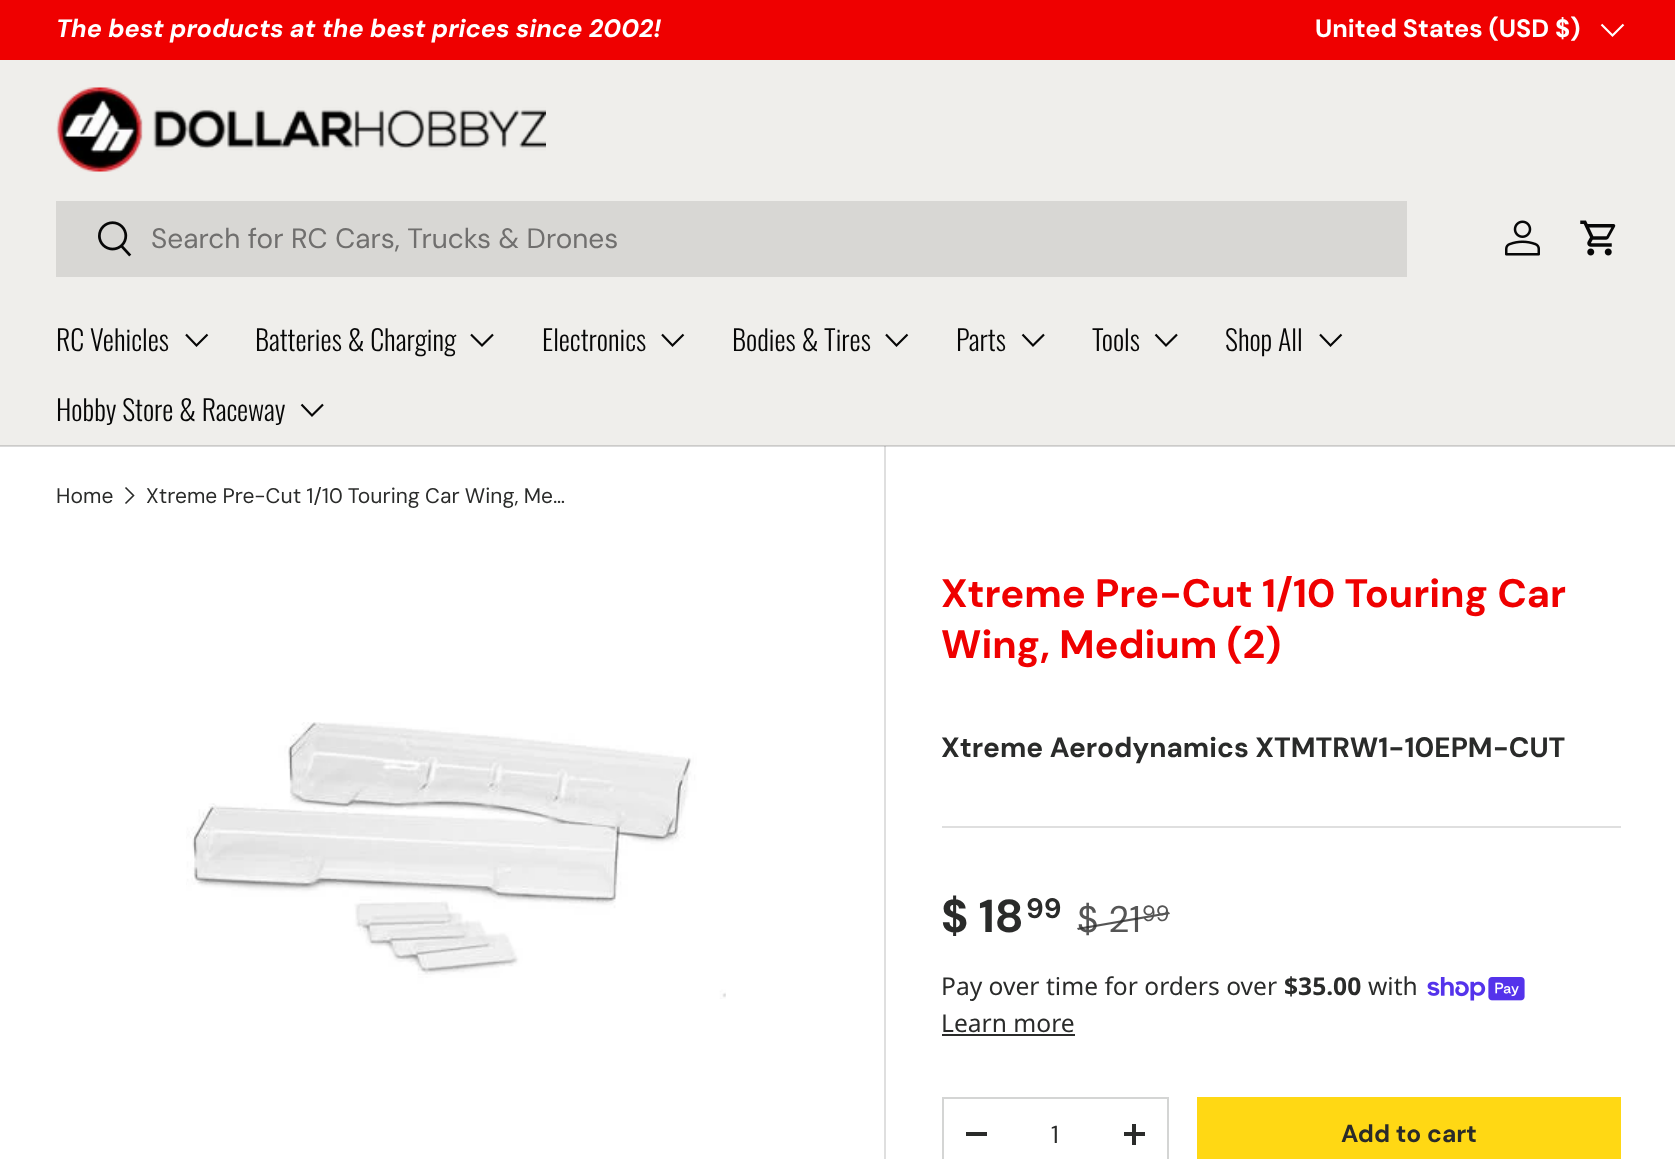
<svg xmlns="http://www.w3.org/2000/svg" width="1675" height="1159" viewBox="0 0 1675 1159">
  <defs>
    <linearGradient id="g1" gradientUnits="userSpaceOnUse" x1="387" y1="985" x2="1590" y2="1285"><stop offset="0.6" stop-color="#e8c61e"/><stop offset="0.6" stop-color="#ffd814"/><stop offset="1" stop-color="#ffd814"/></linearGradient>
  </defs>
  <rect width="100%" height="100%" fill="#fff"/>
  <path d="M0 446h1675v1H0z" fill="#dadada"/>
  <path d="M0 0h1675v60H0z" fill="#ef0000"/>
  <path d="M1623.5 24.5L1612.5 35.5L1601.5 24.5" fill="none" stroke="#fff" stroke-width="2.2"/>
  <path d="M0 60h1675v385H0z" fill="#efeeeb"/>
  <path d="M0 445h1675v1H0z" fill="#cccbc9"/>
  <image x="56" y="87" width="490" height="85" href="img/1.png"/>
  <path d="M56 201h1351v76H56z" fill="#d8d7d4"/>
  <image x="98" y="221" width="34" height="36" href="img/2.png"/>
  <image x="1505" y="220" width="35" height="36" href="img/3.png"/>
  <image x="1580" y="220" width="36" height="36" href="img/4.png"/>
  <path d="M207.5 334.5L196.5 345.5L186 334.5" fill="none" stroke="#070707" stroke-width="2.2"/>
  <path d="M493 334.5L482 345.5L471 334.5" fill="none" stroke="#070707" stroke-width="2.2"/>
  <path d="M683.5 334.5L672.5 345.5L662 334.5" fill="none" stroke="#070707" stroke-width="2.2"/>
  <path d="M907.5 334.5L896.5 345.5L886 334.5" fill="none" stroke="#070707" stroke-width="2.2"/>
  <path d="M1044 334.5L1033 345.5L1022.5 334.5" fill="none" stroke="#070707" stroke-width="2.2"/>
  <path d="M1177 334.5L1166 345.5L1155.5 334.5" fill="none" stroke="#070707" stroke-width="2.2"/>
  <path d="M1341.5 334.5L1330.5 345.5L1320 334.5" fill="none" stroke="#070707" stroke-width="2.2"/>
  <path d="M323 404.5L312 415.5L301.5 404.5" fill="none" stroke="#070707" stroke-width="2.2"/>
  <path d="M125.5 487.5L133.5 495.5L125.5 503.5" fill="none" stroke="#2a2b2a" stroke-width="1.6"/>
  <image x="186" y="722" width="540" height="277" href="img/5.png"/>
  <path d="M884 446h2v713H884z" fill="#dfdfdf"/>
  <path d="M884 446h2v1H884z" fill="#bfbfbf"/>
  <path d="M942 826h679v2H942z" fill="#dfdfdf"/>
  <image x="1427" y="977" width="98" height="24" href="img/6.png"/>
  <path d="M942 1034h133v2H942z" fill="#2a2b2a"/>
  <path d="M943 1098h225v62H943z" fill="none" stroke="#d4d5d4" stroke-width="2"/>
  <path d="M966 1132h21v4H966z" fill="#2a2b2a"/>
  <path d="M1124 1132h21v4H1124z" fill="#2a2b2a"/>
  <path d="M1132 1124h4v21H1132z" fill="#2a2b2a"/>
  <path d="M1199 1099h420v60H1199z" fill="url(#g1)"/>
  <path d="M1198 1098h422v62H1198z" fill="none" stroke="#ffd814" stroke-width="2"/>
  <text x="56" y="37" font-family="DM Sans" font-size="25.2" font-weight="bold" font-style="italic" fill="#fff">The best products at the best prices since 2002!</text>
  <text x="1315" y="37" font-family="'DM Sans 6'" font-size="25.2" font-weight="bold" fill="#fff">United States (USD $)</text>
  <text x="151" y="248" font-family="'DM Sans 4'" font-size="28" fill="#706f6e">Search for RC Cars, Trucks &amp; Drones</text>
  <g font-family="Oswald" font-size="28" font-weight="300" fill="#070707">
    <text x="56" y="351">RC Vehicles</text>
    <text x="255" y="351">Batteries &amp; Charging</text>
    <text x="542" y="351">Electronics</text>
    <text x="732" y="351">Bodies &amp; Tires</text>
    <text x="956" y="351">Parts</text>
    <text x="1092" y="351">Tools</text>
    <text x="1225" y="351">Shop All</text>
    <text x="56" y="421">Hobby Store &amp; Raceway</text>
  </g>
  <g font-family="DM Sans" font-size="21" fill="#2a2b2a">
    <text x="56" y="503">Home</text>
    <text x="146" y="503" word-spacing="-0.5">Xtreme Pre-Cut 1/10 Touring Car Wing, Me…</text>
  </g>
  <g font-family="DM Sans" font-size="39.75" font-weight="bold" fill="#ef0000">
    <text x="941" y="607">Xtreme Pre-Cut 1/10 Touring Car</text>
    <text x="941" y="658">Wing, Medium (2)</text>
  </g>
  <text x="941" y="757" font-family="'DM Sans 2'" font-size="28" font-weight="bold" fill="#2a2b2a">Xtreme Aerodynamics XTMTRW1-10EPM-CUT</text>
  <text x="941" y="932" font-family="'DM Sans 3'" font-size="46" font-weight="bold" fill="#2a2b2a">$ 18</text>
  <text x="1026" y="918" font-family="'DM Sans 4'" font-size="28" font-weight="bold" fill="#2a2b2a">99</text>
  <text x="1077" y="932" font-family="'DM Sans 3'" font-size="37" fill="#555">$ 21</text>
  <path d="M1077 928L1169 912L1170 914L1078 930Z" fill="#2a2b2acc"/>
  <text x="1142" y="921" font-family="DM Sans" font-size="22" fill="#555">99</text>
  <text x="941" y="995" font-family="Noto Sans" font-size="24.6" fill="#2a2b2a">Pay over time for orders over</text>
  <text x="1284" y="995" font-family="Noto Sans" font-size="24.6" font-weight="bold" fill="#2a2b2a">$35.00</text>
  <g font-family="Noto Sans" font-size="24.6" fill="#2a2b2a">
    <text x="1368" y="995">with</text>
    <text x="941" y="1032">Learn more</text>
  </g>
  <text x="1051" y="1143" font-family="'DM Sans 2'" font-size="24.6" fill="#2a2b2a">1</text>
  <text x="1341" y="1142" font-family="'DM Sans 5'" font-size="24.6" font-weight="bold" fill="#2a2b2a">Add to cart</text>
</svg>
